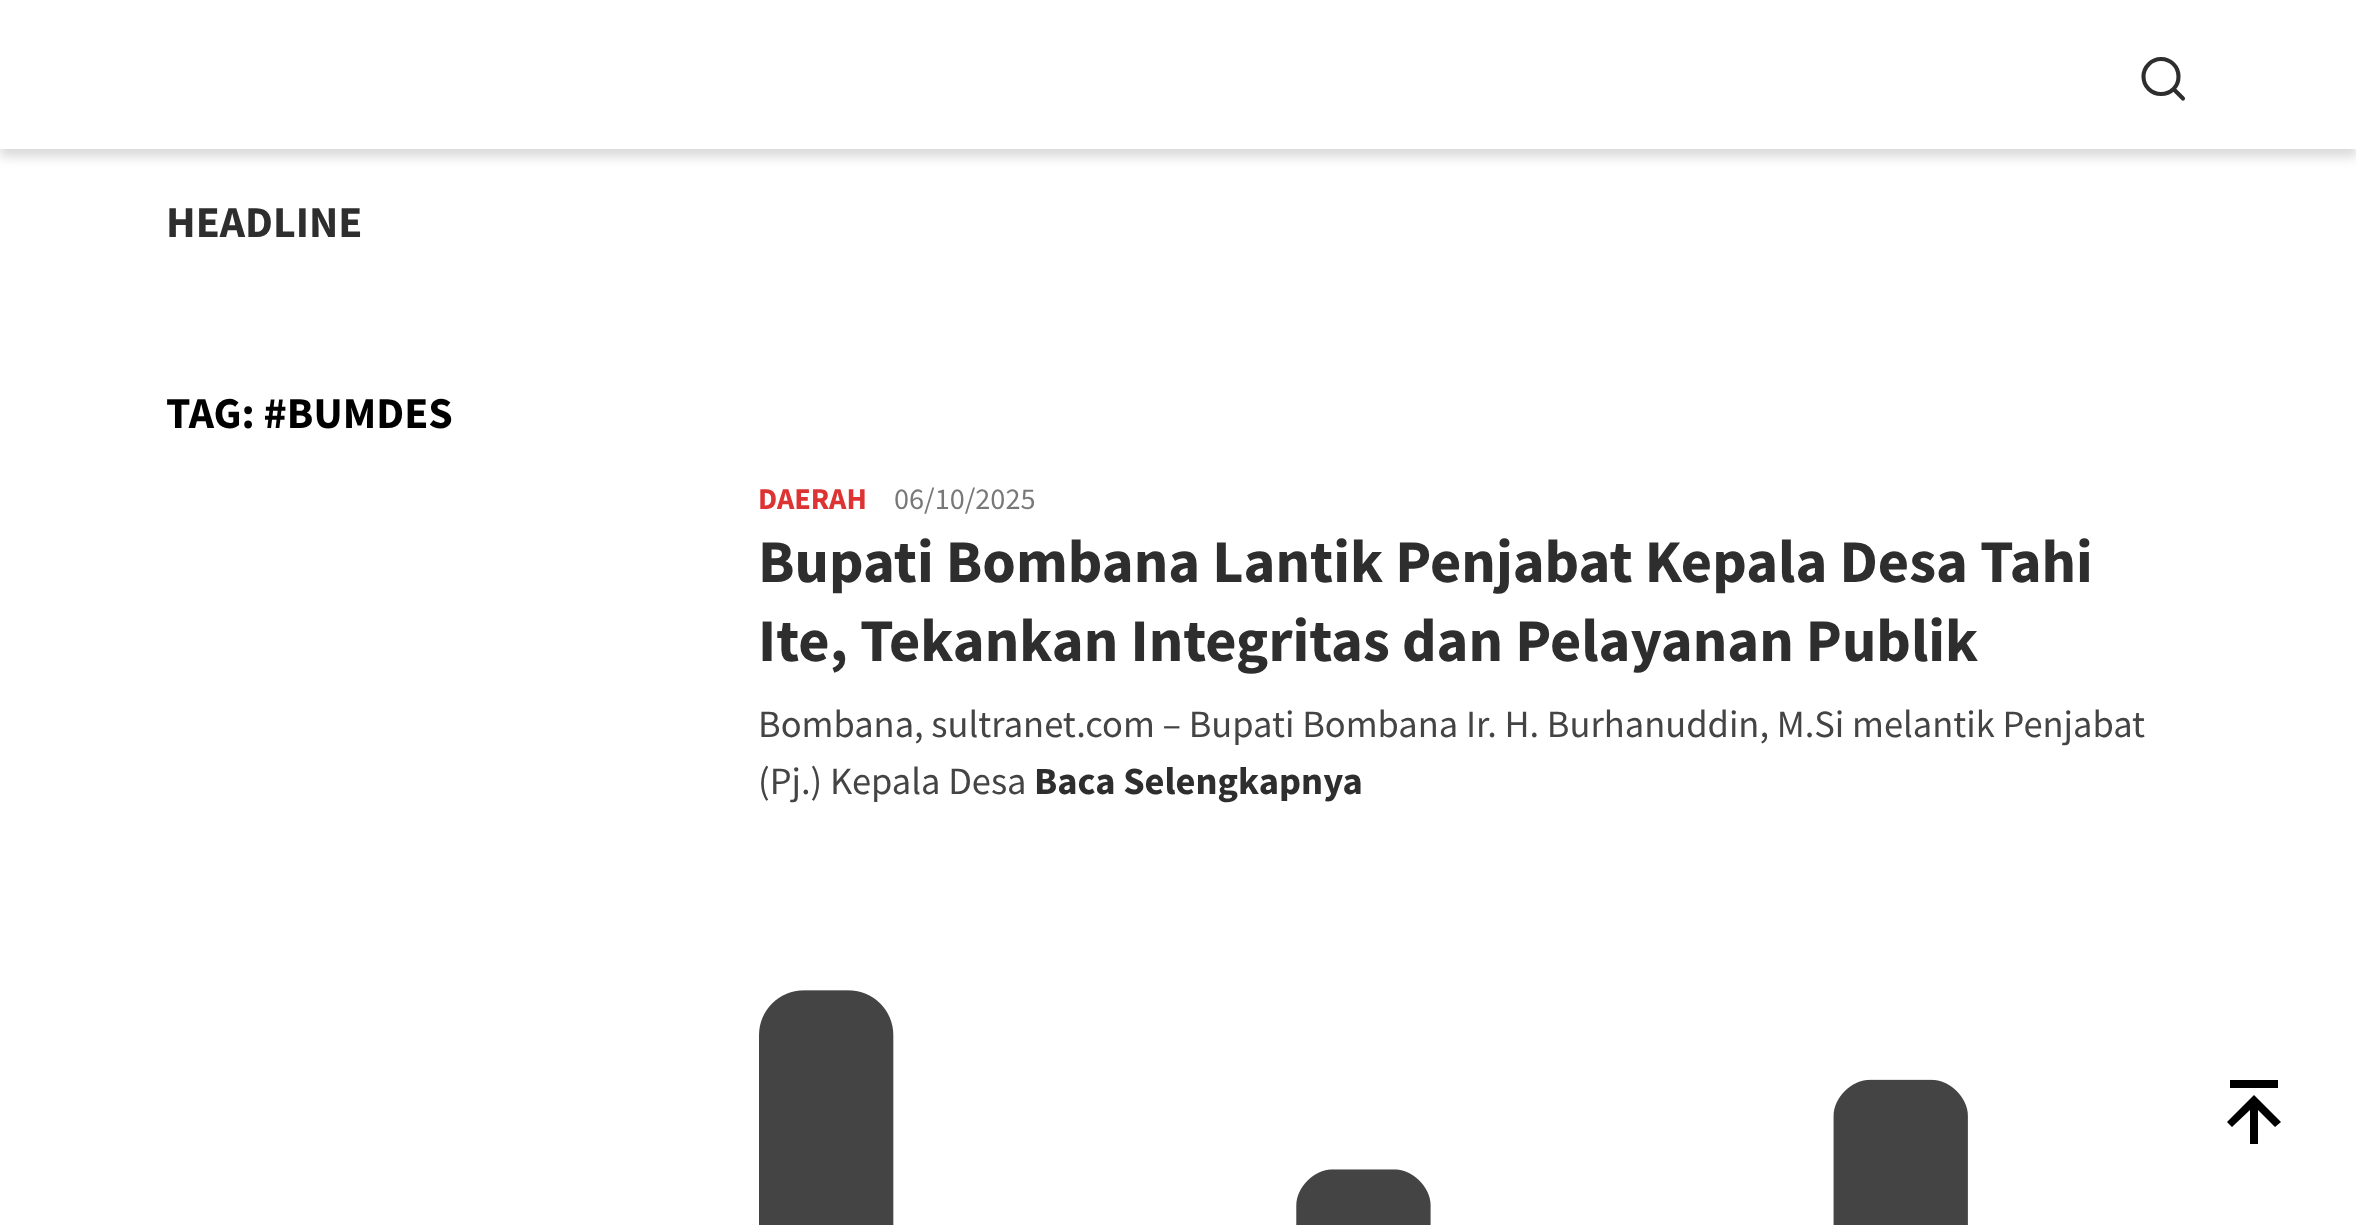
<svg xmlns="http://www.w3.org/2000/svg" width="2356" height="1225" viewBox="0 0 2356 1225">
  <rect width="100%" height="100%" fill="#fff"/>
  <path d="M0 8h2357v149H0z" fill="#3434342e" filter="blur(5.5px)"/>
  <path d="M0 0h2356v149H0z" fill="#fff"/>
  <path d="M2183 98.5L2173.5 89M2178.5 76.5C2178.5 86.5 2171 94 2161 94C2151.5 94 2143.5 86.5 2143.5 76.5C2143.5 67 2151.5 59 2161 59C2171 59 2178.5 67 2178.5 76.5Z" fill="none" stroke="#2e2e2e" stroke-width="4.1" stroke-linecap="round"/>
  <image x="759" y="990" width="1209" height="235" href="img/1.png"/>
  <path d="M2230 1080H2278V1088H2230ZM2232 1127L2250 1110V1144H2258V1110L2275 1127L2281 1122L2254 1095L2227 1122Z" fill="#000"/>
  <text x="166" y="237" font-family="Source Sans Pro" font-size="44" font-weight="bold" fill="#2e2e2e">HEADLINE</text>
  <text x="166" y="428" font-family="Source Sans Pro" font-size="44" font-weight="bold" fill="#000">TAG: #BUMDES</text>
  <text x="758" y="509" font-family="Source Sans Pro" font-size="30.25" font-weight="bold" fill="#d33">DAERAH</text>
  <text x="894" y="509" font-family="Source Sans Pro" font-size="30.25" fill="#787878">06/10/2025</text>
  <g font-family="Source Sans Pro" font-size="60.5" font-weight="bold" fill="#2e2e2e">
    <text x="758" y="582">Bupati Bombana Lantik Penjabat Kepala Desa Tahi</text>
    <text x="758" y="661">Ite, Tekankan Integritas dan Pelayanan Publik</text>
  </g>
  <g font-family="Source Sans Pro" font-size="38.5" fill="#444">
    <text x="758" y="737">Bombana, sultranet.com – Bupati Bombana Ir. H. Burhanuddin, M.Si melantik Penjabat</text>
    <text x="758" y="794">(Pj.) Kepala Desa</text>
  </g>
  <text x="1034" y="794" font-family="Source Sans Pro" font-size="38.5" font-weight="bold" fill="#2e2e2e">Baca Selengkapnya</text>
</svg>
